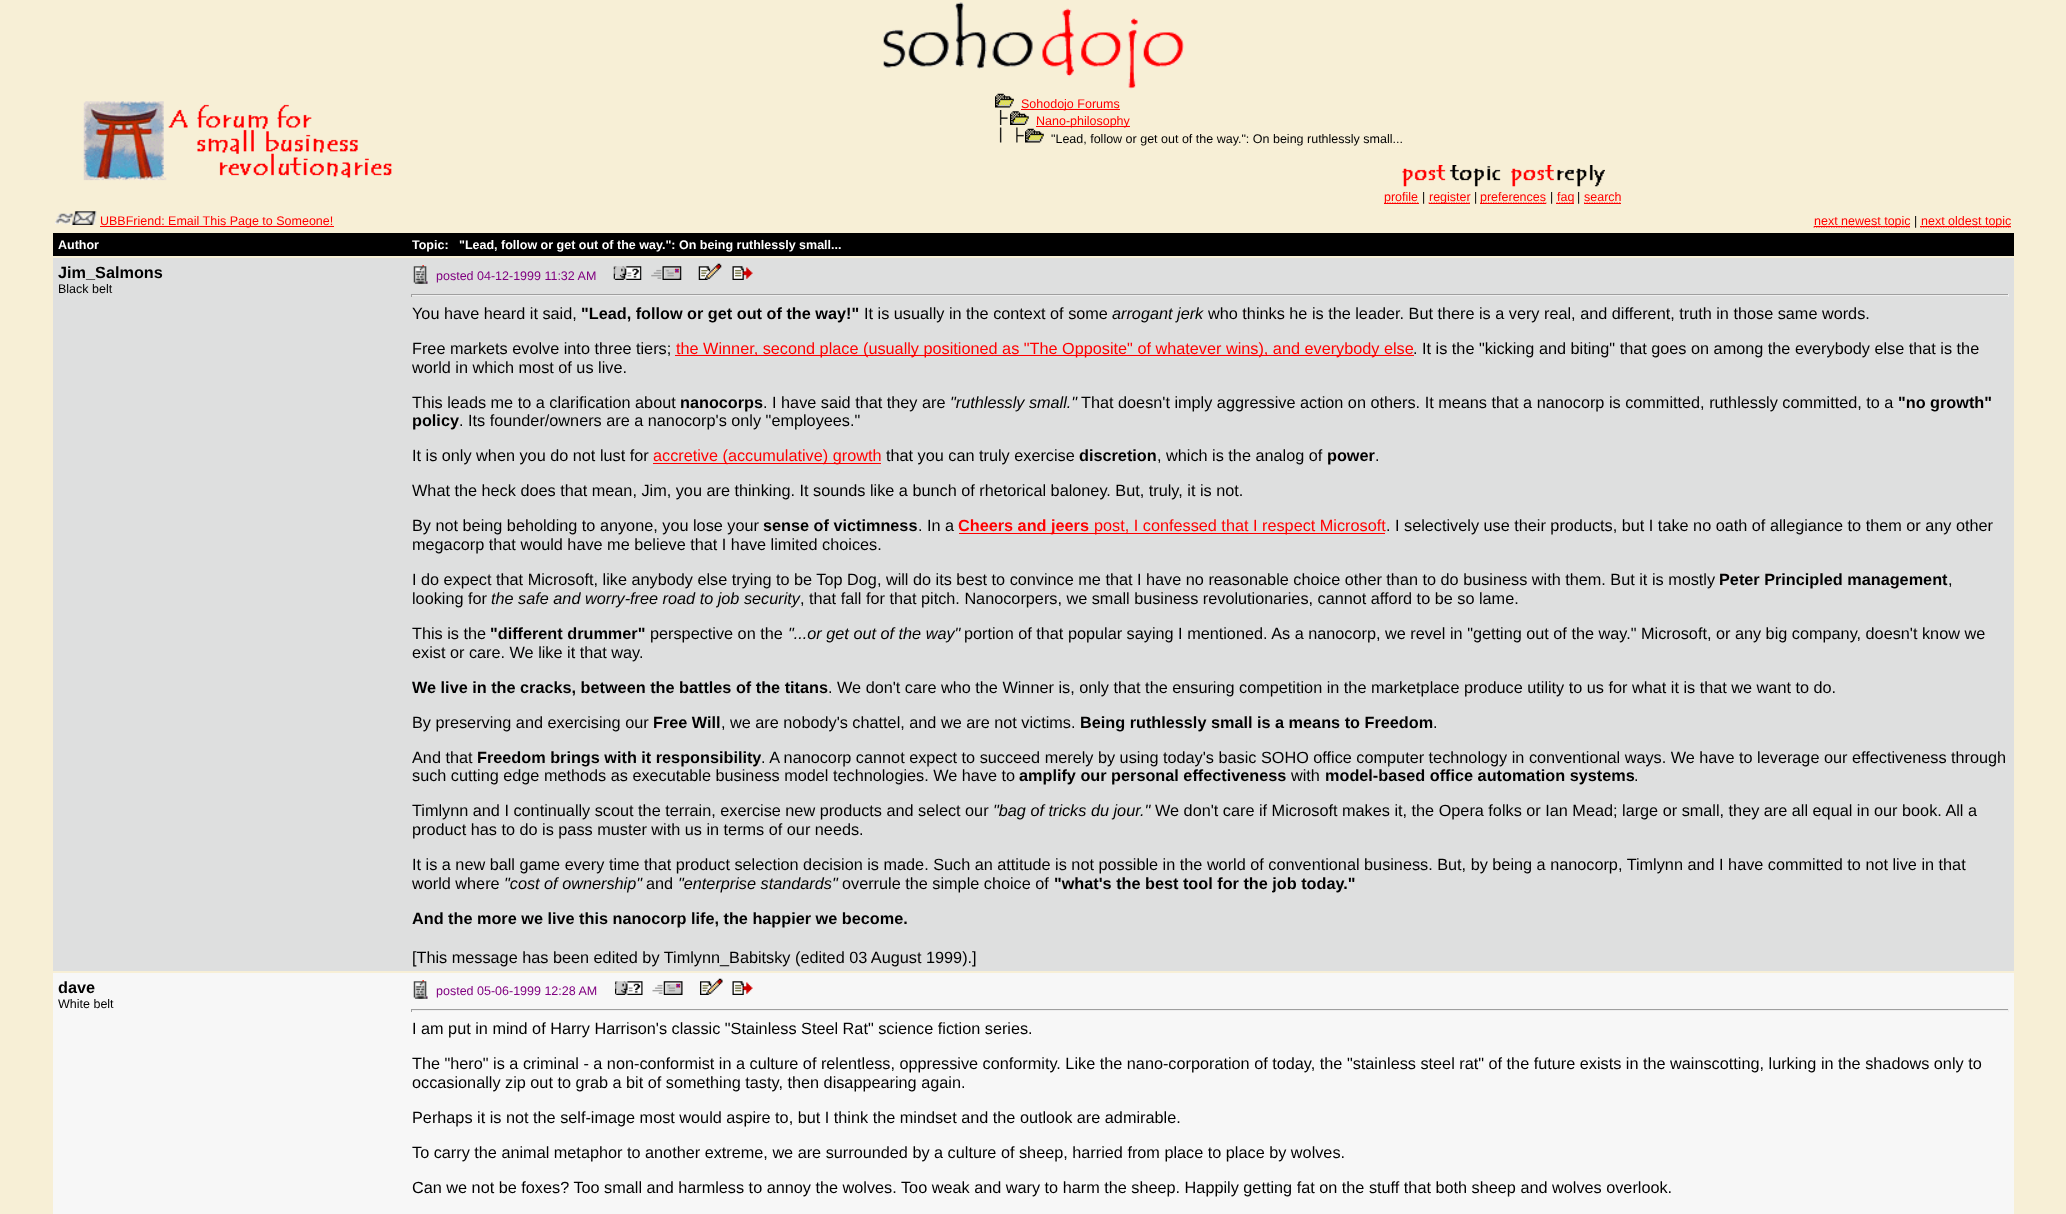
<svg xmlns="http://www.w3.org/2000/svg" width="2066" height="1214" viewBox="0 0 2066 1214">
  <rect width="100%" height="100%" fill="#f7efd6"/>
  <image x="883" y="2" width="301" height="87" href="img/1.png"/>
  <image x="83" y="101" width="309" height="80" href="img/2.png"/>
  <image x="995" y="93" width="19" height="15" href="img/3.png"/>
  <path d="M1021 109h99v1H1021z" fill="#f00"/>
  <image x="999" y="110" width="9" height="15" href="img/4.png"/>
  <image x="1010" y="111" width="19" height="14" href="img/5.png"/>
  <path d="M1036 126h94v1H1036z" fill="#f00"/>
  <image x="999" y="127" width="25" height="16" href="img/6.png"/>
  <image x="1025" y="128" width="19" height="15" href="img/3.png"/>
  <image x="1402" y="165" width="99" height="22" href="img/7.png"/>
  <image x="1511" y="165" width="94" height="22" href="img/8.png"/>
  <path d="M1384.5 203H1418.5" fill="none" stroke="#f00" stroke-width="1.2" stroke-dasharray="1.25 1.25"/>
  <path d="M1384 203h35v1H1384z" fill="#f00"/>
  <path d="M1428.5 203H1470" fill="none" stroke="#f00" stroke-width="1.2" stroke-dasharray="1.25 1.25"/>
  <path d="M1429 203h41v1H1429z" fill="#f00"/>
  <path d="M1480.5 203H1546.5" fill="none" stroke="#f00" stroke-width="1.2" stroke-dasharray="1.25 1.25"/>
  <path d="M1480 203h66v1H1480z" fill="#f00"/>
  <path d="M1556.5 203H1574" fill="none" stroke="#f00" stroke-width="1.2" stroke-dasharray="1.25 1.25"/>
  <path d="M1556 203h18v1H1556z" fill="#f00"/>
  <path d="M1584 203H1621.5" fill="none" stroke="#f00" stroke-width="1.2" stroke-dasharray="1.25 1.25"/>
  <path d="M1584 203h37v1H1584z" fill="#f00"/>
  <image x="55" y="211" width="42" height="14" href="img/9.png"/>
  <path d="M100 226h234v1H100z" fill="#f00"/>
  <path d="M1813.5 227H1910.5" fill="none" stroke="#f00" stroke-width="1.2" stroke-dasharray="1.25 1.25"/>
  <path d="M1814 226h96v1H1814z" fill="#f00"/>
  <path d="M1920.5 227H2011" fill="none" stroke="#f00" stroke-width="1.2" stroke-dasharray="1.25 1.25"/>
  <path d="M1920 226h91v1H1920z" fill="#f00"/>
  <path d="M53 233h1961v23H53z" fill="#000"/>
  <path d="M53 258h1961v713H53z" fill="#dedfdf"/>
  <image x="413" y="265" width="15" height="19" href="img/10.png"/>
  <image x="613" y="266" width="29" height="14" href="img/11.png"/>
  <image x="651" y="266" width="31" height="14" href="img/12.png"/>
  <image x="698" y="263" width="24" height="17" href="img/13.png"/>
  <image x="732" y="266" width="21" height="14" href="img/14.png"/>
  <path d="M411 294h1598v1H411z" fill="#9f9f9f"/>
  <path d="M2008 294h1v3H2008z" fill="#eee"/>
  <path d="M411 295h1598v1H411z" fill="#eee"/>
  <path d="M411 294h1v3H411z" fill="#9f9f9f"/>
  <path d="M675 355h739v1H675z" fill="#f00"/>
  <path d="M653 463h228v1H653z" fill="#f00"/>
  <path d="M959 533h426v1H959z" fill="#f00"/>
  <path d="M53 973h1961v241H53z" fill="#f7f7f7"/>
  <image x="413" y="980" width="15" height="19" href="img/15.png"/>
  <image x="615" y="981" width="28" height="14" href="img/16.png"/>
  <image x="652" y="981" width="31" height="14" href="img/17.png"/>
  <image x="700" y="978" width="23" height="17" href="img/18.png"/>
  <image x="732" y="981" width="21" height="14" href="img/19.png"/>
  <path d="M411 1009h1598v1H411z" fill="#9f9f9f"/>
  <path d="M2008 1009h1v3H2008z" fill="#eee"/>
  <path d="M411 1010h1598v1H411z" fill="#eee"/>
  <path d="M411 1009h1v3H411z" fill="#9f9f9f"/>
  <g font-family="Liberation Sans" font-size="12.5" fill="#f00">
    <text x="1021" y="108">Sohodojo Forums</text>
    <text x="1036" y="125">Nano-philosophy</text>
  </g>
  <text x="1051" y="143" font-family="Liberation Sans" font-size="12.5" fill="#000">"Lead, follow or get out of the way.": On being ruthlessly small...</text>
  <text x="1384" y="201" font-family="Liberation Sans" font-size="12.5" fill="#f00">profile</text>
  <text x="1422" y="201" font-family="Liberation Sans" font-size="12.5" fill="#000">|</text>
  <text x="1429" y="201" font-family="Liberation Sans" font-size="12.5" fill="#f00">register</text>
  <text x="1474" y="201" font-family="Liberation Sans" font-size="12.5" fill="#000">|</text>
  <text x="1480" y="201" font-family="Liberation Sans" font-size="12.5" fill="#f00">preferences</text>
  <text x="1550" y="201" font-family="Liberation Sans" font-size="12.5" fill="#000">|</text>
  <text x="1557" y="201" font-family="Liberation Sans" font-size="12.5" fill="#f00">faq</text>
  <text x="1577" y="201" font-family="Liberation Sans" font-size="12.5" fill="#000">|</text>
  <g font-family="Liberation Sans" font-size="12.5" fill="#f00">
    <text x="1584" y="201">search</text>
    <text x="100" y="225">UBBFriend: Email This Page to Someone!</text>
    <text x="1814" y="225">next newest topic</text>
  </g>
  <text x="1914" y="225" font-family="Liberation Sans" font-size="12.5" fill="#000">|</text>
  <text x="1921" y="225" font-family="Liberation Sans" font-size="12.5" fill="#f00">next oldest topic</text>
  <g font-family="Liberation Sans" font-size="12.5" font-weight="bold" fill="#fff">
    <text x="58" y="249">Author</text>
    <text x="412" y="249" xml:space="preserve">Topic:   "Lead, follow or get out of the way.": On being ruthlessly small...</text>
  </g>
  <text x="58" y="278" font-family="Liberation Sans" font-size="16.25" font-weight="bold" fill="#000">Jim_Salmons</text>
  <text x="58" y="293" font-family="Liberation Sans" font-size="12.5" fill="#000">Black belt</text>
  <text x="436" y="280" font-family="Liberation Sans" font-size="12.5" fill="#800080">posted 04-12-1999 11:32 AM</text>
  <text x="412" y="319" font-family="Liberation Sans" font-size="16.25" fill="#000">You have heard it said,</text>
  <text x="581" y="319" font-family="Liberation Sans" font-size="16.25" font-weight="bold" fill="#000">"Lead, follow or get out of the way!"</text>
  <text x="864" y="319" font-family="Liberation Sans" font-size="16.25" fill="#000">It is usually in the context of some</text>
  <text x="1112" y="319" font-family="Liberation Sans" font-size="16.25" font-style="italic" fill="#000">arrogant jerk</text>
  <g font-family="Liberation Sans" font-size="16.25" fill="#000">
    <text x="1208" y="319">who thinks he is the leader. But there is a very real, and different, truth in those same words.</text>
    <text x="412" y="354">Free markets evolve into three tiers;</text>
  </g>
  <text x="676" y="354" font-family="Liberation Sans" font-size="16.25" fill="#f00">the Winner, second place (usually positioned as "The Opposite" of whatever wins), and everybody else</text>
  <g font-family="Liberation Sans" font-size="16.25" fill="#000">
    <text x="1413" y="354">. It is the "kicking and biting" that goes on among the everybody else that is the</text>
    <text x="412" y="373">world in which most of us live.</text>
    <text x="412" y="408">This leads me to a clarification about</text>
  </g>
  <text x="680" y="408" font-family="Liberation Sans" font-size="16.25" font-weight="bold" fill="#000">nanocorps</text>
  <text x="763" y="408" font-family="Liberation Sans" font-size="16.25" fill="#000">. I have said that they are</text>
  <text x="950" y="408" font-family="Liberation Sans" font-size="16.25" font-style="italic" fill="#000">"ruthlessly small."</text>
  <text x="1081" y="408" font-family="Liberation Sans" font-size="16.25" fill="#000">That doesn't imply aggressive action on others. It means that a nanocorp is committed, ruthlessly committed, to a</text>
  <g font-family="Liberation Sans" font-size="16.25" font-weight="bold" fill="#000">
    <text x="1898" y="408">"no growth"</text>
    <text x="412" y="426">policy</text>
  </g>
  <g font-family="Liberation Sans" font-size="16.25" fill="#000">
    <text x="459" y="426">. Its founder/owners are a nanocorp's only "employees."</text>
    <text x="412" y="461">It is only when you do not lust for</text>
  </g>
  <text x="653" y="461" font-family="Liberation Sans" font-size="16.25" fill="#f00">accretive (accumulative) growth</text>
  <text x="886" y="461" font-family="Liberation Sans" font-size="16.25" fill="#000">that you can truly exercise</text>
  <text x="1079" y="461" font-family="Liberation Sans" font-size="16.25" font-weight="bold" fill="#000">discretion</text>
  <text x="1157" y="461" font-family="Liberation Sans" font-size="16.25" fill="#000">, which is the analog of</text>
  <text x="1327" y="461" font-family="Liberation Sans" font-size="16.25" font-weight="bold" fill="#000">power</text>
  <g font-family="Liberation Sans" font-size="16.25" fill="#000">
    <text x="1375" y="461">.</text>
    <text x="412" y="496">What the heck does that mean, Jim, you are thinking. It sounds like a bunch of rhetorical baloney. But, truly, it is not.</text>
    <text x="412" y="531">By not being beholding to anyone, you lose your</text>
  </g>
  <text x="763" y="531" font-family="Liberation Sans" font-size="16.25" font-weight="bold" fill="#000">sense of victimness</text>
  <text x="918" y="531" font-family="Liberation Sans" font-size="16.25" fill="#000">. In a</text>
  <text x="958" y="531" font-family="Liberation Sans" font-size="16.25" font-weight="bold" fill="#f00">Cheers and jeers</text>
  <text x="1094" y="531" font-family="Liberation Sans" font-size="16.25" fill="#f00">post, I confessed that I respect Microsoft</text>
  <g font-family="Liberation Sans" font-size="16.25" fill="#000">
    <text x="1386" y="531">. I selectively use their products, but I take no oath of allegiance to them or any other</text>
    <text x="412" y="550">megacorp that would have me believe that I have limited choices.</text>
    <text x="412" y="585">I do expect that Microsoft, like anybody else trying to be Top Dog, will do its best to convince me that I have no reasonable choice other than to do business with them. But it is mostly</text>
  </g>
  <text x="1719" y="585" font-family="Liberation Sans" font-size="16.25" font-weight="bold" fill="#000">Peter Principled management</text>
  <g font-family="Liberation Sans" font-size="16.25" fill="#000">
    <text x="1948" y="585">,</text>
    <text x="412" y="604">looking for</text>
  </g>
  <text x="491" y="604" font-family="Liberation Sans" font-size="16.25" font-style="italic" fill="#000">the safe and worry-free road to job security</text>
  <g font-family="Liberation Sans" font-size="16.25" fill="#000">
    <text x="800" y="604">, that fall for that pitch. Nanocorpers, we small business revolutionaries, cannot afford to be so lame.</text>
    <text x="412" y="639">This is the</text>
  </g>
  <text x="490" y="639" font-family="Liberation Sans" font-size="16.25" font-weight="bold" fill="#000">"different drummer"</text>
  <text x="650" y="639" font-family="Liberation Sans" font-size="16.25" fill="#000">perspective on the</text>
  <text x="788" y="639" font-family="Liberation Sans" font-size="16.25" font-style="italic" fill="#000">"...or get out of the way"</text>
  <g font-family="Liberation Sans" font-size="16.25" fill="#000">
    <text x="964" y="639">portion of that popular saying I mentioned. As a nanocorp, we revel in "getting out of the way." Microsoft, or any big company, doesn't know we</text>
    <text x="412" y="658">exist or care. We like it that way.</text>
  </g>
  <text x="412" y="693" font-family="Liberation Sans" font-size="16.25" font-weight="bold" fill="#000">We live in the cracks, between the battles of the titans</text>
  <g font-family="Liberation Sans" font-size="16.25" fill="#000">
    <text x="828" y="693">. We don't care who the Winner is, only that the ensuring competition in the marketplace produce utility to us for what it is that we want to do.</text>
    <text x="412" y="728">By preserving and exercising our</text>
  </g>
  <text x="653" y="728" font-family="Liberation Sans" font-size="16.25" font-weight="bold" fill="#000">Free Will</text>
  <text x="721" y="728" font-family="Liberation Sans" font-size="16.25" fill="#000">, we are nobody's chattel, and we are not victims.</text>
  <text x="1080" y="728" font-family="Liberation Sans" font-size="16.25" font-weight="bold" fill="#000">Being ruthlessly small is a means to Freedom</text>
  <g font-family="Liberation Sans" font-size="16.25" fill="#000">
    <text x="1433" y="728">.</text>
    <text x="412" y="763">And that</text>
  </g>
  <text x="477" y="763" font-family="Liberation Sans" font-size="16.25" font-weight="bold" fill="#000">Freedom brings with it responsibility</text>
  <g font-family="Liberation Sans" font-size="16.25" fill="#000">
    <text x="761" y="763">. A nanocorp cannot expect to succeed merely by using today's basic SOHO office computer technology in conventional ways. We have to leverage our effectiveness through</text>
    <text x="412" y="781">such cutting edge methods as executable business model technologies. We have to</text>
  </g>
  <text x="1019" y="781" font-family="Liberation Sans" font-size="16.25" font-weight="bold" fill="#000">amplify our personal effectiveness</text>
  <text x="1291" y="781" font-family="Liberation Sans" font-size="16.25" fill="#000">with</text>
  <text x="1325" y="781" font-family="Liberation Sans" font-size="16.25" font-weight="bold" fill="#000">model-based office automation systems</text>
  <g font-family="Liberation Sans" font-size="16.25" fill="#000">
    <text x="1634" y="781">.</text>
    <text x="412" y="816">Timlynn and I continually scout the terrain, exercise new products and select our</text>
  </g>
  <text x="993" y="816" font-family="Liberation Sans" font-size="16.25" font-style="italic" fill="#000">"bag of tricks du jour."</text>
  <g font-family="Liberation Sans" font-size="16.25" fill="#000">
    <text x="1155" y="816">We don't care if Microsoft makes it, the Opera folks or Ian Mead; large or small, they are all equal in our book. All a</text>
    <text x="412" y="835">product has to do is pass muster with us in terms of our needs.</text>
    <text x="412" y="870">It is a new ball game every time that product selection decision is made. Such an attitude is not possible in the world of conventional business. But, by being a nanocorp, Timlynn and I have committed to not live in that</text>
    <text x="412" y="889">world where</text>
  </g>
  <text x="504" y="889" font-family="Liberation Sans" font-size="16.25" font-style="italic" fill="#000">"cost of ownership"</text>
  <text x="646" y="889" font-family="Liberation Sans" font-size="16.25" fill="#000">and</text>
  <text x="678" y="889" font-family="Liberation Sans" font-size="16.25" font-style="italic" fill="#000">"enterprise standards"</text>
  <text x="842" y="889" font-family="Liberation Sans" font-size="16.25" fill="#000">overrule the simple choice of</text>
  <g font-family="Liberation Sans" font-size="16.25" font-weight="bold" fill="#000">
    <text x="1054" y="889">"what's the best tool for the job today."</text>
    <text x="412" y="924">And the more we live this nanocorp life, the happier we become.</text>
  </g>
  <text x="412" y="963" font-family="Liberation Sans" font-size="16.25" fill="#000">[This message has been edited by Timlynn_Babitsky (edited 03 August 1999).]</text>
  <text x="58" y="993" font-family="Liberation Sans" font-size="16.25" font-weight="bold" fill="#000">dave</text>
  <text x="58" y="1008" font-family="Liberation Sans" font-size="12.5" fill="#000">White belt</text>
  <text x="436" y="995" font-family="Liberation Sans" font-size="12.5" fill="#800080">posted 05-06-1999 12:28 AM</text>
  <g font-family="Liberation Sans" font-size="16.25" fill="#000">
    <text x="412" y="1034">I am put in mind of Harry Harrison's classic "Stainless Steel Rat" science fiction series.</text>
    <text x="412" y="1069">The "hero" is a criminal - a non-conformist in a culture of relentless, oppressive conformity. Like the nano-corporation of today, the "stainless steel rat" of the future exists in the wainscotting, lurking in the shadows only to</text>
    <text x="412" y="1088">occasionally zip out to grab a bit of something tasty, then disappearing again.</text>
    <text x="412" y="1123">Perhaps it is not the self-image most would aspire to, but I think the mindset and the outlook are admirable.</text>
    <text x="412" y="1158">To carry the animal metaphor to another extreme, we are surrounded by a culture of sheep, harried from place to place by wolves.</text>
    <text x="412" y="1193">Can we not be foxes? Too small and harmless to annoy the wolves. Too weak and wary to harm the sheep. Happily getting fat on the stuff that both sheep and wolves overlook.</text>
  </g>
</svg>
